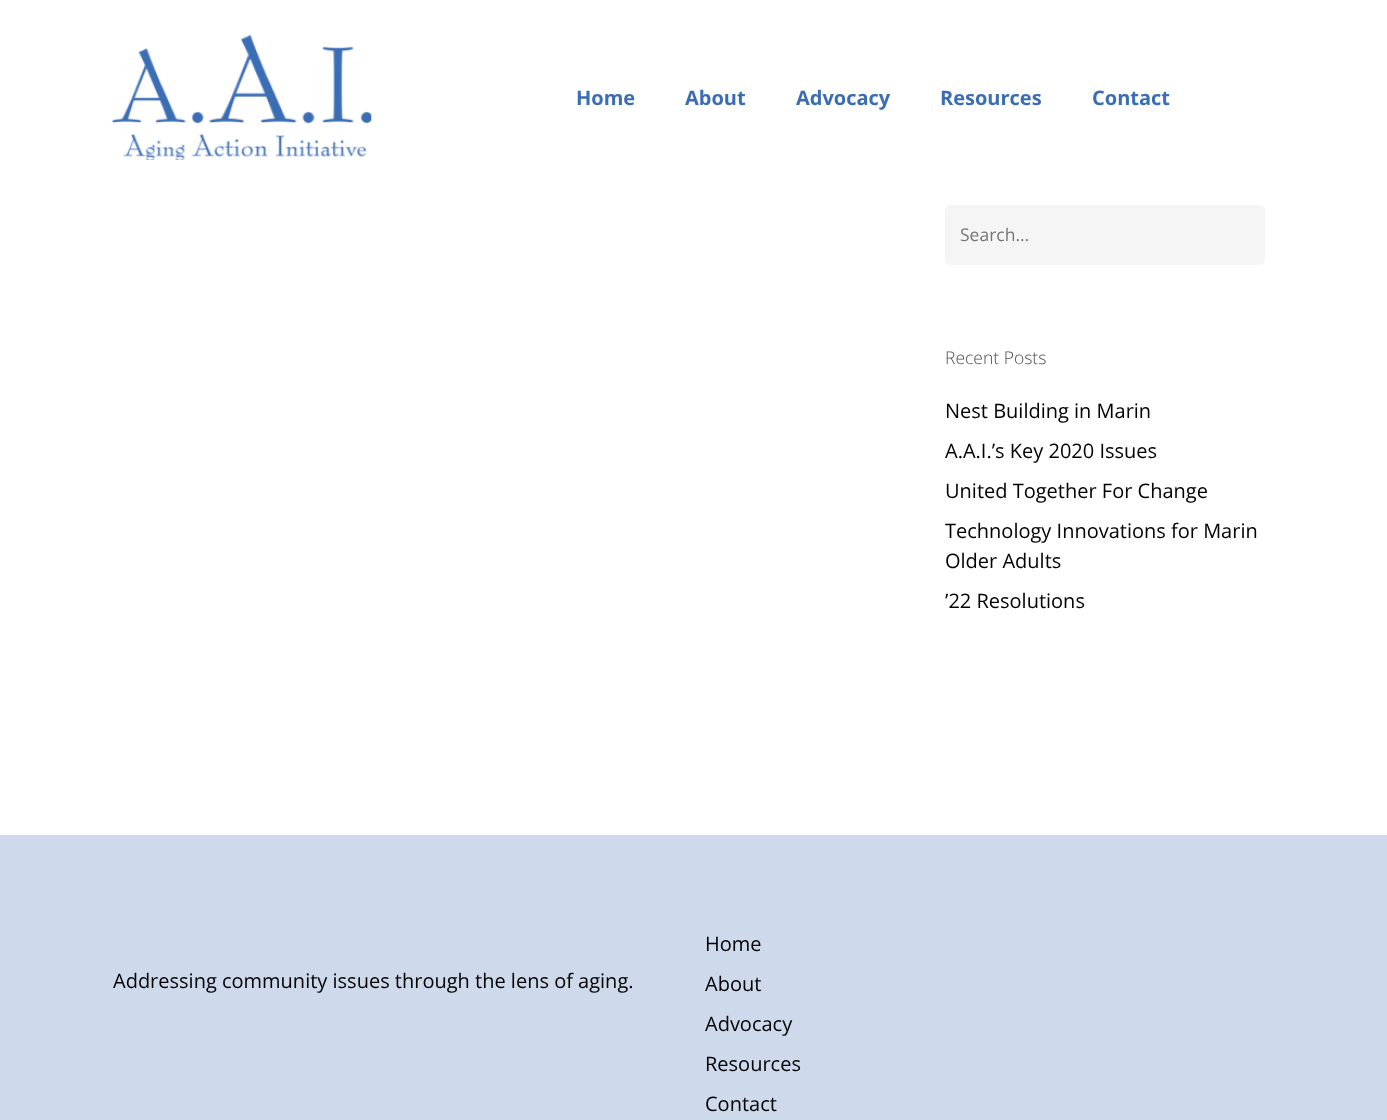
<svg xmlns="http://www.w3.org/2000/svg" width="1387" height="1120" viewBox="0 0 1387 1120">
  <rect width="100%" height="100%" fill="#fff"/>
  <image x="112" y="35" width="260" height="125" href="img/1.png"/>
  <rect x="945" y="205" width="320" height="60" rx="5" fill="#f5f5f5"/>
  <path d="M0 835h1387v285H0z" fill="#cedaec"/>
  <g font-family="Open Sans" font-size="20" font-weight="bold" fill="#3b6db5">
    <text x="576" y="105">Home</text>
    <text x="685" y="105">About</text>
    <text x="796" y="105">Advocacy</text>
    <text x="940" y="105">Resources</text>
    <text x="1092" y="105">Contact</text>
  </g>
  <text x="960" y="241" font-family="Open Sans" font-size="17.5" fill="#757575">Search...</text>
  <text x="945" y="364" font-family="Open Sans" font-size="17.5" font-weight="300" fill="#4d4d4d">Recent Posts</text>
  <g font-family="Open Sans" font-size="20" fill="#000">
    <text x="945" y="418">Nest Building in Marin</text>
    <text x="945" y="458">A.A.I.’s Key 2020 Issues</text>
    <text x="945" y="498">United Together For Change</text>
    <text x="945" y="538">Technology Innovations for Marin</text>
    <text x="945" y="568">Older Adults</text>
    <text x="945" y="608">’22 Resolutions</text>
    <text x="113" y="988">Addressing community issues through the lens of aging.</text>
    <text x="705" y="951">Home</text>
    <text x="705" y="991">About</text>
    <text x="705" y="1031">Advocacy</text>
    <text x="705" y="1071">Resources</text>
    <text x="705" y="1111">Contact</text>
  </g>
</svg>
